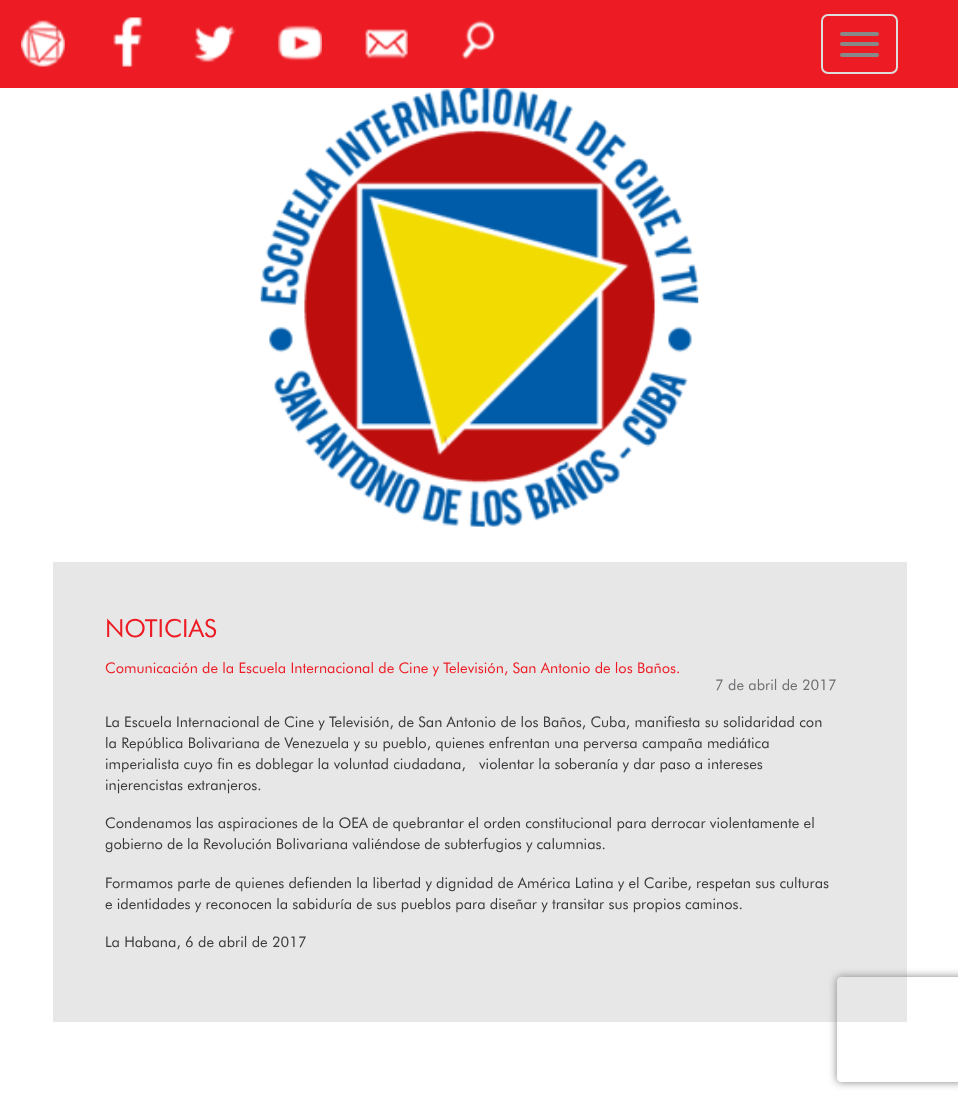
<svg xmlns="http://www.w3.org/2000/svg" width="958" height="1106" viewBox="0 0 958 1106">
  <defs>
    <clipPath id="clip1"><path d="M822 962H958V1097H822ZM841 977H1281C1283 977 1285 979 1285 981V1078C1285 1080 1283 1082 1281 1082H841C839 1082 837 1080 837 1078V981C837 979 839 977 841 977Z" clip-rule="evenodd"/></clipPath>
  </defs>
  <rect width="100%" height="100%" fill="#fff"/>
  <path d="M0 0h958v88H0z" fill="#ed1c24"/>
  <image x="21" y="20" width="44" height="47" href="img/1.png"/>
  <image x="113" y="17" width="30" height="50" href="img/2.png"/>
  <image x="194" y="25" width="42" height="38" href="img/3.png"/>
  <image x="278" y="25" width="44" height="36" href="img/4.png"/>
  <image x="365" y="29" width="43" height="30" href="img/5.png"/>
  <image x="461" y="20" width="35" height="40" href="img/6.png"/>
  <rect x="822" y="15" width="75" height="58" rx="6" fill="none" stroke="#ddd" stroke-width="2"/>
  <rect x="840" y="32" width="39" height="4" rx="2" fill="#888"/>
  <rect x="840" y="42" width="39" height="4" rx="2" fill="#888"/>
  <rect x="840" y="53" width="39" height="4" rx="2" fill="#888"/>
  <image x="260" y="88" width="439" height="439" href="img/7.png"/>
  <path d="M53 562h854v460H53z" fill="#e7e7e8"/>
  <g clip-path="url(#clip1)">
    <rect x="837" y="977" width="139" height="105" rx="4" fill="#808080" filter="blur(4.5px)"/>
  </g>
  <text x="105" y="637" font-family="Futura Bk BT" font-size="25" fill="#ed1c24">NOTICIAS</text>
  <text x="105" y="673" word-spacing="-0.1" font-family="Futura Bk BT" font-size="14.7" fill="#ed1c24">Comunicación de la Escuela Internacional de Cine y Televisión, San Antonio de los Baños.</text>
  <text x="715" y="690" font-family="Futura Bk BT" font-size="14.7" fill="#6d6e70">7 de abril de 2017</text>
  <g font-family="Futura Bk BT" font-size="14.7" fill="#393a3b">
    <text x="105" y="727" word-spacing="-0.1">La Escuela Internacional de Cine y Televisión, de San Antonio de los Baños, Cuba, manifiesta su solidaridad con</text>
    <text x="105" y="748" word-spacing="-0.1">la República Bolivariana de Venezuela y su pueblo, quienes enfrentan una perversa campaña mediática</text>
    <text x="105" y="769" word-spacing="-0.1">imperialista cuyo fin es doblegar la voluntad ciudadana,</text>
    <text x="479" y="769" word-spacing="-0.1">violentar la soberanía y dar paso a intereses</text>
    <text x="105" y="790">injerencistas extranjeros.</text>
    <text x="105" y="828" word-spacing="-0.1">Condenamos las aspiraciones de la OEA de quebrantar el orden constitucional para derrocar violentamente el</text>
    <text x="105" y="849" word-spacing="-0.25">gobierno de la Revolución Bolivariana valiéndose de subterfugios y calumnias.</text>
    <text x="105" y="888" word-spacing="-0.1">Formamos parte de quienes defienden la libertad y dignidad de América Latina y el Caribe, respetan sus culturas</text>
    <text x="105" y="909" word-spacing="-0.1">e identidades y reconocen la sabiduría de sus pueblos para diseñar y transitar sus propios caminos.</text>
    <text x="105" y="947">La Habana, 6 de abril de 2017</text>
  </g>
</svg>
